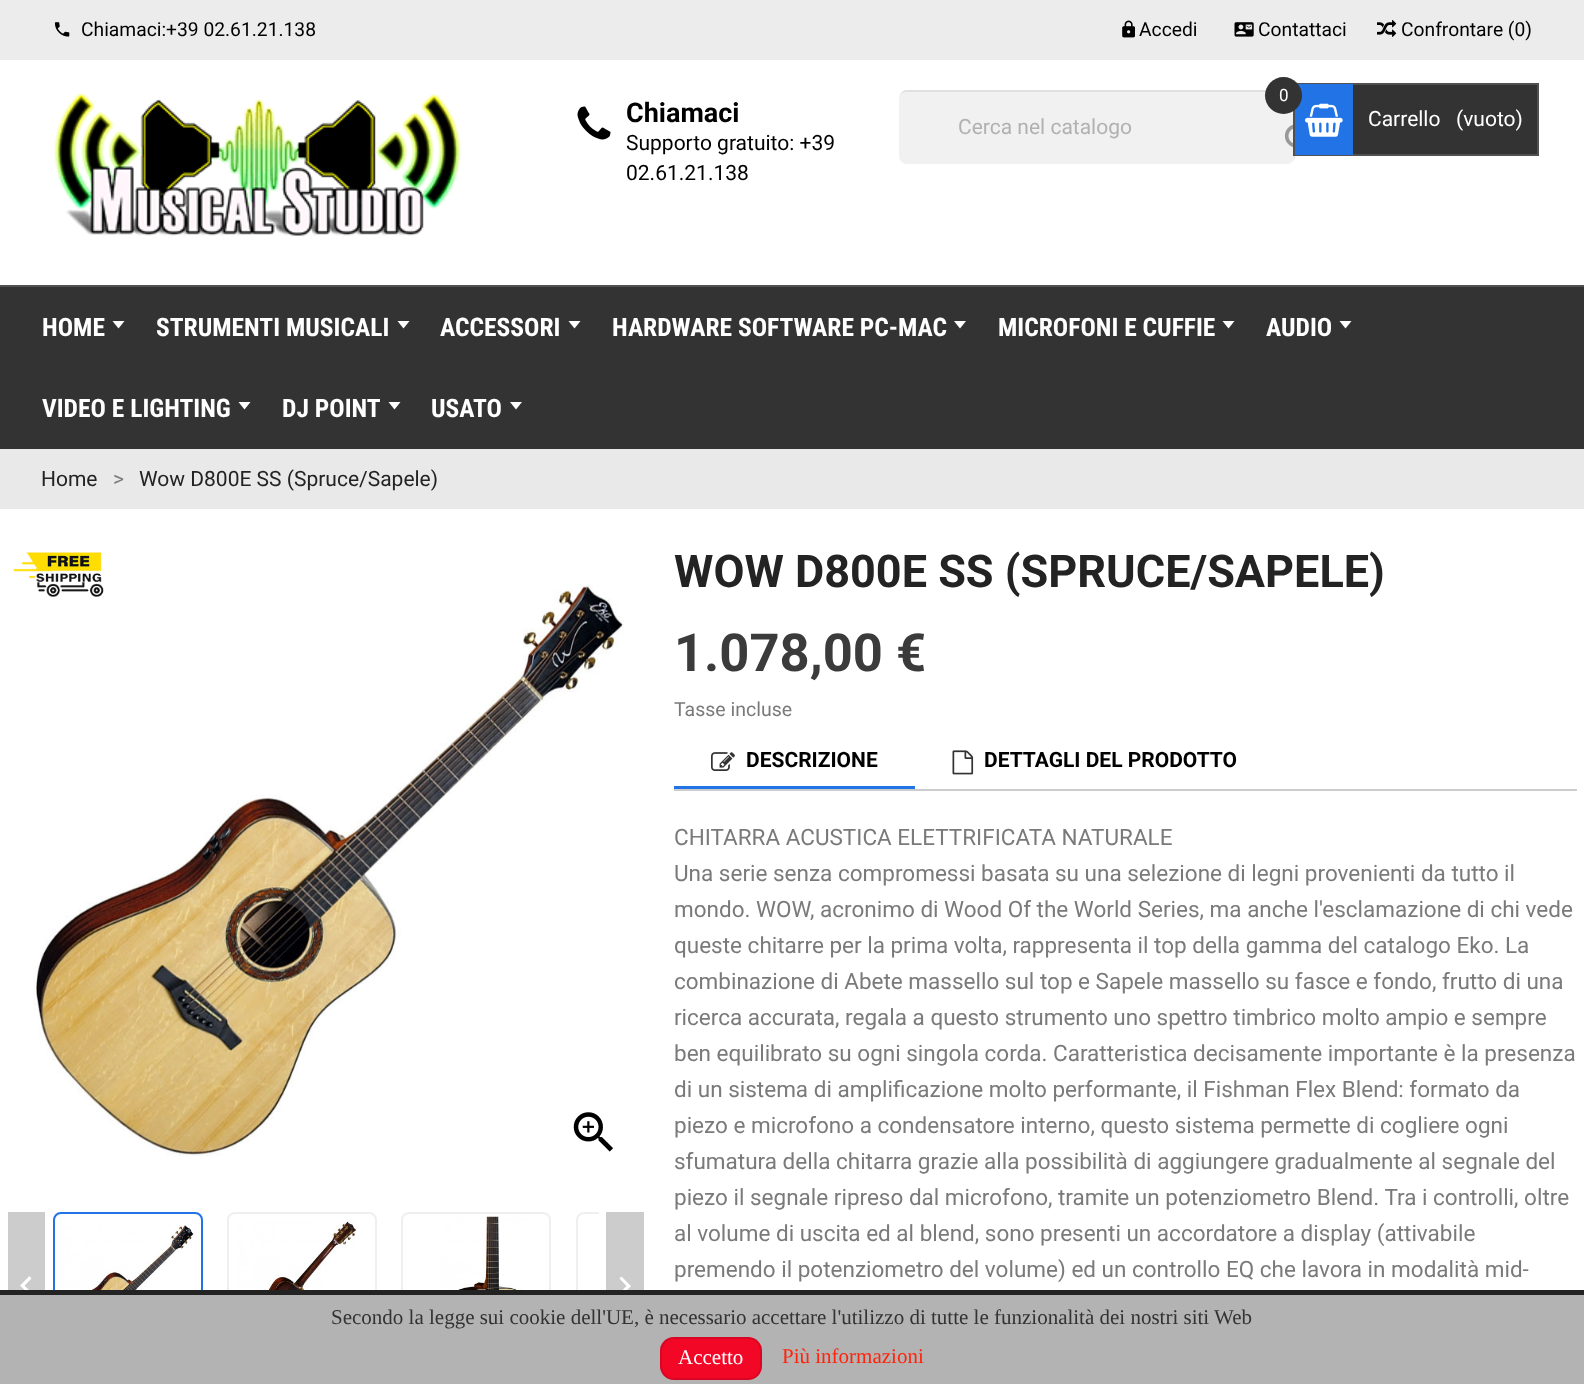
<svg xmlns="http://www.w3.org/2000/svg" width="1584" height="1384" viewBox="0 0 1584 1384">
  <defs>
    <clipPath id="clip1"><path d="M53 1212h546v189H53z"/></clipPath>
  </defs>
  <rect width="100%" height="100%" fill="#fff"/>
  <path d="M0 0h1584v60H0z" fill="#ececec"/>
  <image x="54" y="22" width="16" height="15" href="img/1.png"/>
  <image x="1122" y="20" width="13" height="18" href="img/2.png"/>
  <image x="1234" y="22" width="20" height="15" href="img/3.png"/>
  <image x="1377" y="19" width="20" height="18" href="img/4.png"/>
  <image x="54" y="93" width="407" height="143" href="img/5.png"/>
  <image x="577" y="106" width="34" height="34" href="img/6.png"/>
  <rect x="899" y="90" width="396" height="74" rx="8" fill="#f1f1f1"/>
  <path d="M906 92H1287C1291 92 1294 95 1294 99V158V161C1294 159 1295 158 1295 156V98C1295 94 1291 90 1287 90H907C904 90 901 92 900 95C901 93 904 92 906 92Z" fill="#00000012"/>
  <image x="1284" y="124" width="9" height="23" href="img/7.png"/>
  <path d="M1353 85h184v69H1353z" fill="#333"/>
  <path d="M1294 84h244v71H1294z" fill="none" stroke="#515151" stroke-width="2"/>
  <path d="M1295 84h58v71H1295z" fill="#2173e6"/>
  <image x="1305" y="103" width="38" height="34" href="img/8.png"/>
  <circle cx="1283.5" cy="95.5" r="18.5" fill="#333"/>
  <path d="M0 287h1584v162H0z" fill="#333"/>
  <path d="M0 285h1584v2H0z" fill="#515151"/>
  <path d="M112.5 321H124.5L118.5 328.5Z" fill="#fff"/>
  <path d="M397.5 321H409.5L403.5 328.5Z" fill="#fff"/>
  <path d="M568.5 321H580.5L574.5 328.5Z" fill="#fff"/>
  <path d="M954 321H966L960 328.5Z" fill="#fff"/>
  <path d="M1222.5 321H1234.5L1228.5 328.5Z" fill="#fff"/>
  <path d="M1339.5 321H1351.5L1345.5 328.5Z" fill="#fff"/>
  <path d="M238.5 402H250.5L244.5 409.5Z" fill="#fff"/>
  <path d="M388.5 402H400.5L394.5 409.5Z" fill="#fff"/>
  <path d="M510 402H522L516 409.5Z" fill="#fff"/>
  <path d="M0 449h1584v60H0z" fill="#e9e9e9"/>
  <image x="33" y="584" width="591" height="573" href="img/10.png"/>
  <image x="13" y="552" width="91" height="45" href="img/9.png"/>
  <image x="573" y="1112" width="40" height="40" href="img/11.png"/>
  <rect x="54" y="1213" width="148" height="148" rx="7" fill="none" stroke="#2173e6" stroke-width="2"/>
  <rect x="228" y="1213" width="148" height="148" rx="7" fill="none" stroke="#efefef" stroke-width="2"/>
  <rect x="402" y="1213" width="148" height="148" rx="7" fill="none" stroke="#efefef" stroke-width="2"/>
  <g clip-path="url(#clip1)">
    <rect x="577" y="1213" width="148" height="148" rx="7" fill="none" stroke="#efefef" stroke-width="2"/>
  </g>
  <image x="62" y="1225" width="135" height="65" href="img/12.png"/>
  <image x="236" y="1221" width="121" height="69" href="img/13.png"/>
  <image x="441" y="1216" width="90" height="74" href="img/14.png"/>
  <path d="M8 1212h37v78H8z" fill="#ccc"/>
  <path d="M31.5 1292.5L29.5 1295L20 1285.5L29.5 1276L31.5 1278.5L24.5 1285.5Z" fill="#fff"/>
  <path d="M606 1212h38v78H606z" fill="#ccc"/>
  <path d="M619.5 1293L626.5 1286L619.5 1278.5L621.5 1276.5L631 1286L621.5 1295.5Z" fill="#fff"/>
  <path d="M674 789h903v2H674z" fill="#ccc"/>
  <path d="M674 786h241v3H674z" fill="#2173e6"/>
  <image x="711" y="752" width="24" height="19" href="img/15.png"/>
  <image x="952" y="750" width="22" height="25" href="img/16.png"/>
  <path d="M0 1295h1584v89H0z" fill="#b3b3b3"/>
  <path d="M0 1290h1584v5H0z" fill="#232323"/>
  <rect x="660" y="1337" width="102" height="43" rx="14" fill="#f20727"/>
  <rect x="661" y="1338" width="100" height="41" rx="13" fill="none" stroke="#0000001a" stroke-width="2"/>
  <g font-family="Roboto" font-size="19.25" fill="#000">
    <text x="81" y="36">Chiamaci:+39 02.61.21.138</text>
    <text x="1139" y="36">Accedi</text>
    <text x="1258" y="36">Contattaci</text>
    <text x="1401" y="36">Confrontare (0)</text>
  </g>
  <text x="626" y="122" font-family="Roboto" font-size="27" font-weight="bold" fill="#000">Chiamaci</text>
  <g font-family="Roboto" font-size="21" fill="#000">
    <text x="626" y="150">Supporto gratuito: +39</text>
    <text x="626" y="180">02.61.21.138</text>
  </g>
  <text x="958" y="134" font-family="Roboto" font-size="21" fill="#b1b1b1">Cerca nel catalogo</text>
  <text x="1279" y="101" font-family="Roboto" font-size="17" fill="#fff">0</text>
  <g font-family="Roboto" font-size="21" fill="#fff">
    <text x="1368" y="126">Carrello</text>
    <text x="1456" y="126">(vuoto)</text>
  </g>
  <g font-family="Roboto Condensed" font-size="25.5" font-weight="bold" fill="#fff">
    <text x="42" y="336">HOME</text>
    <text x="156" y="336">STRUMENTI MUSICALI</text>
    <text x="440" y="336">ACCESSORI</text>
    <text x="612" y="336">HARDWARE SOFTWARE PC-MAC</text>
    <text x="998" y="336">MICROFONI E CUFFIE</text>
    <text x="1266" y="336">AUDIO</text>
    <text x="42" y="417">VIDEO E LIGHTING</text>
    <text x="282" y="417">DJ POINT</text>
    <text x="431" y="417">USATO</text>
  </g>
  <text x="41" y="486" font-family="Roboto" font-size="21" fill="#232323">Home</text>
  <text x="113" y="486" font-family="Roboto" font-size="21" fill="#7a7a7a">&gt;</text>
  <text x="139" y="486" font-family="Roboto" font-size="21" fill="#232323">Wow D800E SS (Spruce/Sapele)</text>
  <text x="674" y="587" font-family="Roboto" font-size="45" font-weight="bold" fill="#232323">WOW D800E SS (SPRUCE/SAPELE)</text>
  <text x="674" y="671" font-family="Roboto" font-size="52.5" font-weight="bold" fill="#3b3b3b">1.078,00 €</text>
  <text x="674" y="716" font-family="Roboto" font-size="19.5" fill="#7a7a7a">Tasse incluse</text>
  <g font-family="Roboto" font-size="21" font-weight="bold" fill="#000">
    <text x="746" y="767">DESCRIZIONE</text>
    <text x="984" y="767">DETTAGLI DEL PRODOTTO</text>
  </g>
  <g font-family="Roboto" font-size="22.5" fill="#7a7a7a">
    <text x="674" y="845">CHITARRA ACUSTICA ELETTRIFICATA NATURALE</text>
    <text x="674" y="881">Una serie senza compromessi basata su una selezione di legni provenienti da tutto il</text>
    <text x="674" y="917">mondo. WOW, acronimo di Wood Of the World Series, ma anche l'esclamazione di chi vede</text>
    <text x="674" y="953">queste chitarre per la prima volta, rappresenta il top della gamma del catalogo Eko. La</text>
    <text x="674" y="989">combinazione di Abete massello sul top e Sapele massello su fasce e fondo, frutto di una</text>
    <text x="674" y="1025">ricerca accurata, regala a questo strumento uno spettro timbrico molto ampio e sempre</text>
    <text x="674" y="1061">ben equilibrato su ogni singola corda. Caratteristica decisamente importante è la presenza</text>
    <text x="674" y="1097">di un sistema di amplificazione molto performante, il Fishman Flex Blend: formato da</text>
    <text x="674" y="1133">piezo e microfono a condensatore interno, questo sistema permette di cogliere ogni</text>
    <text x="674" y="1169">sfumatura della chitarra grazie alla possibilità di aggiungere gradualmente al segnale del</text>
    <text x="674" y="1205">piezo il segnale ripreso dal microfono, tramite un potenziometro Blend. Tra i controlli, oltre</text>
    <text x="674" y="1241">al volume di uscita ed al blend, sono presenti un accordatore a display (attivabile</text>
    <text x="674" y="1277">premendo il potenziometro del volume) ed un controllo EQ che lavora in modalità mid-</text>
  </g>
  <text x="331" y="1324" font-family="Liberation Serif" font-size="21" fill="#333">Secondo la legge sui cookie dell'UE, è necessario accettare l'utilizzo di tutte le funzionalità dei nostri siti Web</text>
  <text x="678" y="1364" font-family="Liberation Serif" font-size="21" fill="#fff">Accetto</text>
  <text x="782" y="1363" font-family="Liberation Serif" font-size="21" fill="#ff230a">Più informazioni</text>
</svg>
